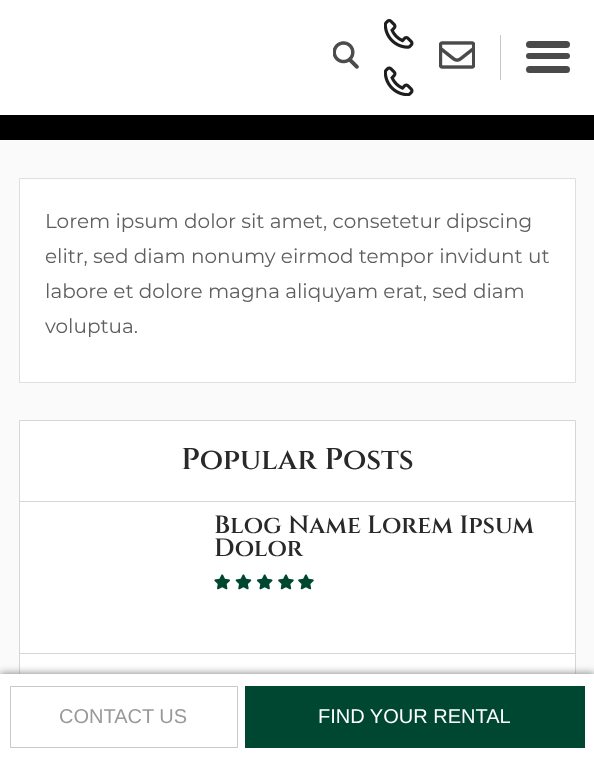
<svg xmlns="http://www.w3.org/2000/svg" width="594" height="760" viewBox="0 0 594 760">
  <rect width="100%" height="100%" fill="#fafafa"/>
  <path d="M0 0h594v115H0z" fill="#fff"/>
  <image x="333" y="41" width="26" height="28" href="img/1.png"/>
  <image x="384" y="19" width="30" height="30" href="img/2.png"/>
  <image x="384" y="66" width="30" height="30" href="img/3.png"/>
  <path d="M500 35h1v45H500z" fill="#c9c9c9"/>
  <image x="439" y="41" width="36" height="28" href="img/4.png"/>
  <rect x="526" y="41" width="44" height="7" rx="3.5" fill="#4a4a4a"/>
  <rect x="526" y="53" width="44" height="6" rx="3" fill="#4a4a4a"/>
  <rect x="526" y="66" width="44" height="7" rx="3.5" fill="#4a4a4a"/>
  <path d="M0 115h594v25H0z" fill="#000"/>
  <path d="M19.5 178.5h556v204H19.5z" fill="#fff" stroke="#dfdfdf"/>
  <path d="M20 421h555v253H20z" fill="#fff"/>
  <path d="M19.5 420.5h556v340H19.5z" fill="none" stroke="#d6d6d6"/>
  <path d="M20 501h555v1H20z" fill="#d6d6d6"/>
  <path d="M20 653h555v1H20z" fill="#d6d6d6"/>
  <image x="214" y="574" width="16" height="16" href="img/5.png"/>
  <image x="235" y="574" width="17" height="16" href="img/6.png"/>
  <image x="256" y="574" width="17" height="16" href="img/7.png"/>
  <image x="278" y="574" width="16" height="16" href="img/8.png"/>
  <image x="298" y="574" width="16" height="16" href="img/8.png"/>
  <path d="M0 674h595v86H0z" fill="#777" filter="blur(4.5px)"/>
  <path d="M0 674h594v86H0z" fill="#fff"/>
  <path d="M10.5 686.5h227v61H10.5z" fill="none" stroke="#c8c8c8"/>
  <path d="M245 686h340v62H245z" fill="#004732"/>
  <g font-family="Montserrat" font-size="20" fill="#5f5f5f">
    <text x="45" y="228">Lorem ipsum dolor sit amet, consetetur dipscing</text>
    <text x="45" y="263">elitr, sed diam nonumy eirmod tempor invidunt ut</text>
    <text x="45" y="298">labore et dolore magna aliquyam erat, sed diam</text>
    <text x="45" y="333">voluptua.</text>
  </g>
  <text x="181" y="469" font-family="Cinzel" font-size="30" font-weight="600" fill="#292929">Popular Posts</text>
  <g font-family="Cinzel" font-size="25" font-weight="600" fill="#292929">
    <text x="214" y="533">Blog Name Lorem Ipsum</text>
    <text x="214" y="556">Dolor</text>
  </g>
  <text x="59" y="723" font-family="Liberation Sans" font-size="20" fill="#999">CONTACT US</text>
  <text x="318" y="723" font-family="Liberation Sans" font-size="20" fill="#fff">FIND YOUR RENTAL</text>
</svg>
